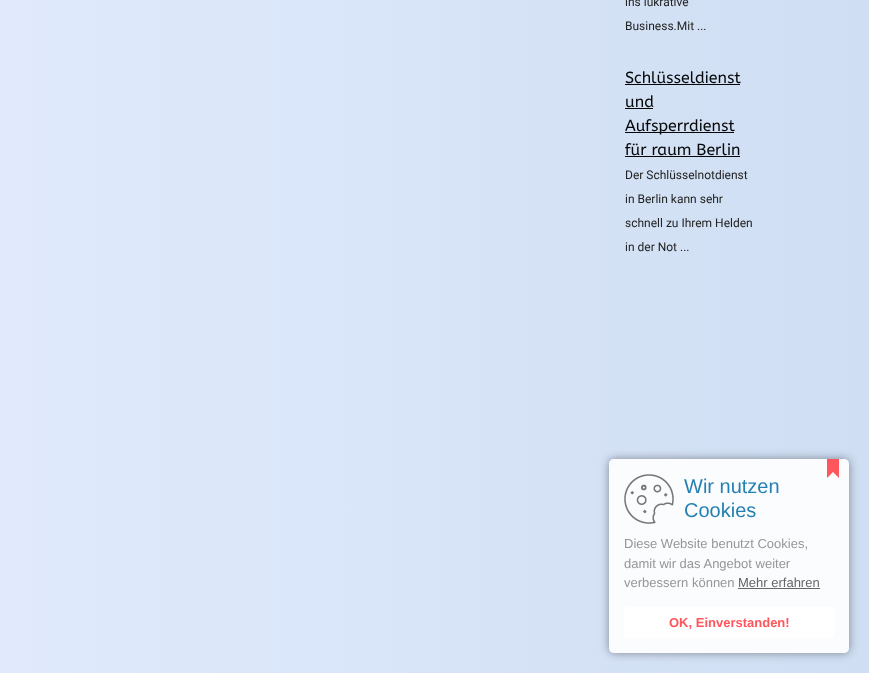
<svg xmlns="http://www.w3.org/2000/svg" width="869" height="673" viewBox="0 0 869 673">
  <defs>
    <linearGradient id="g1" gradientUnits="userSpaceOnUse" x1="0" y1="170" x2="869" y2="170"><stop offset="0" stop-color="#e0eafc"/><stop offset="1" stop-color="#cfdef3"/></linearGradient>
    <clipPath id="clip1"><path d="M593 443H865V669H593ZM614 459H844C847 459 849 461 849 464V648C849 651 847 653 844 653H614C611 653 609 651 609 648V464C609 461 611 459 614 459Z" clip-rule="evenodd"/></clipPath>
  </defs>
  <rect width="100%" height="100%" fill="#fff"/>
  <path d="M0 0h869v673H0z" fill="url(#g1)"/>
  <path d="M625 84h115v1H625z" fill="#060708"/>
  <path d="M625 108h28v1H625z" fill="#060708"/>
  <path d="M625 132h109v1H625z" fill="#060708"/>
  <path d="M625 156h115v1H625z" fill="#060708"/>
  <g clip-path="url(#clip1)">
    <rect x="609" y="459" width="240" height="194" rx="5" fill="#00000066" filter="blur(5px)"/>
  </g>
  <rect x="609" y="459" width="240" height="194" rx="5" fill="#ffffffe6"/>
  <path d="M827 459h12v13H827z" fill="#ff565d"/>
  <path d="M839 459V478L833 472ZM827 478V459L833 472Z" fill="#ff565d"/>
  <image x="624" y="474" width="50" height="50" href="img/1.png"/>
  <path d="M738 588h82v1H738z" fill="#666"/>
  <rect x="624" y="607" width="210" height="31" rx="4" fill="#fff"/>
  <g font-family="Roboto" font-size="12" fill="#222">
    <text x="625" y="6">ins lukrative</text>
    <text x="625" y="30">Business.Mit ...</text>
  </g>
  <g font-family="ABeeZee" font-size="16" fill="#060708">
    <text x="625" y="83">Schlüsseldienst</text>
    <text x="625" y="107">und</text>
    <text x="625" y="131">Aufsperrdienst</text>
    <text x="625" y="155">für raum Berlin</text>
  </g>
  <g font-family="Roboto" font-size="12" fill="#222">
    <text x="625" y="179">Der Schlüsselnotdienst</text>
    <text x="625" y="203">in Berlin kann sehr</text>
    <text x="625" y="227">schnell zu Ihrem Helden</text>
    <text x="625" y="251">in der Not ...</text>
  </g>
  <g font-family="Liberation Sans" font-size="20" fill="#2580b1">
    <text x="684" y="493">Wir nutzen</text>
    <text x="684" y="517">Cookies</text>
  </g>
  <g font-family="Liberation Sans" font-size="13" fill="#969696">
    <text x="624" y="548">Diese Website benutzt Cookies,</text>
    <text x="624" y="568">damit wir das Angebot weiter</text>
    <text x="624" y="587">verbessern können</text>
  </g>
  <text x="738" y="587" font-family="Liberation Sans" font-size="13" fill="#666">Mehr erfahren</text>
  <text x="669" y="627" font-family="Liberation Sans" font-size="13" font-weight="bold" fill="#ff565d">OK, Einverstanden!</text>
</svg>
